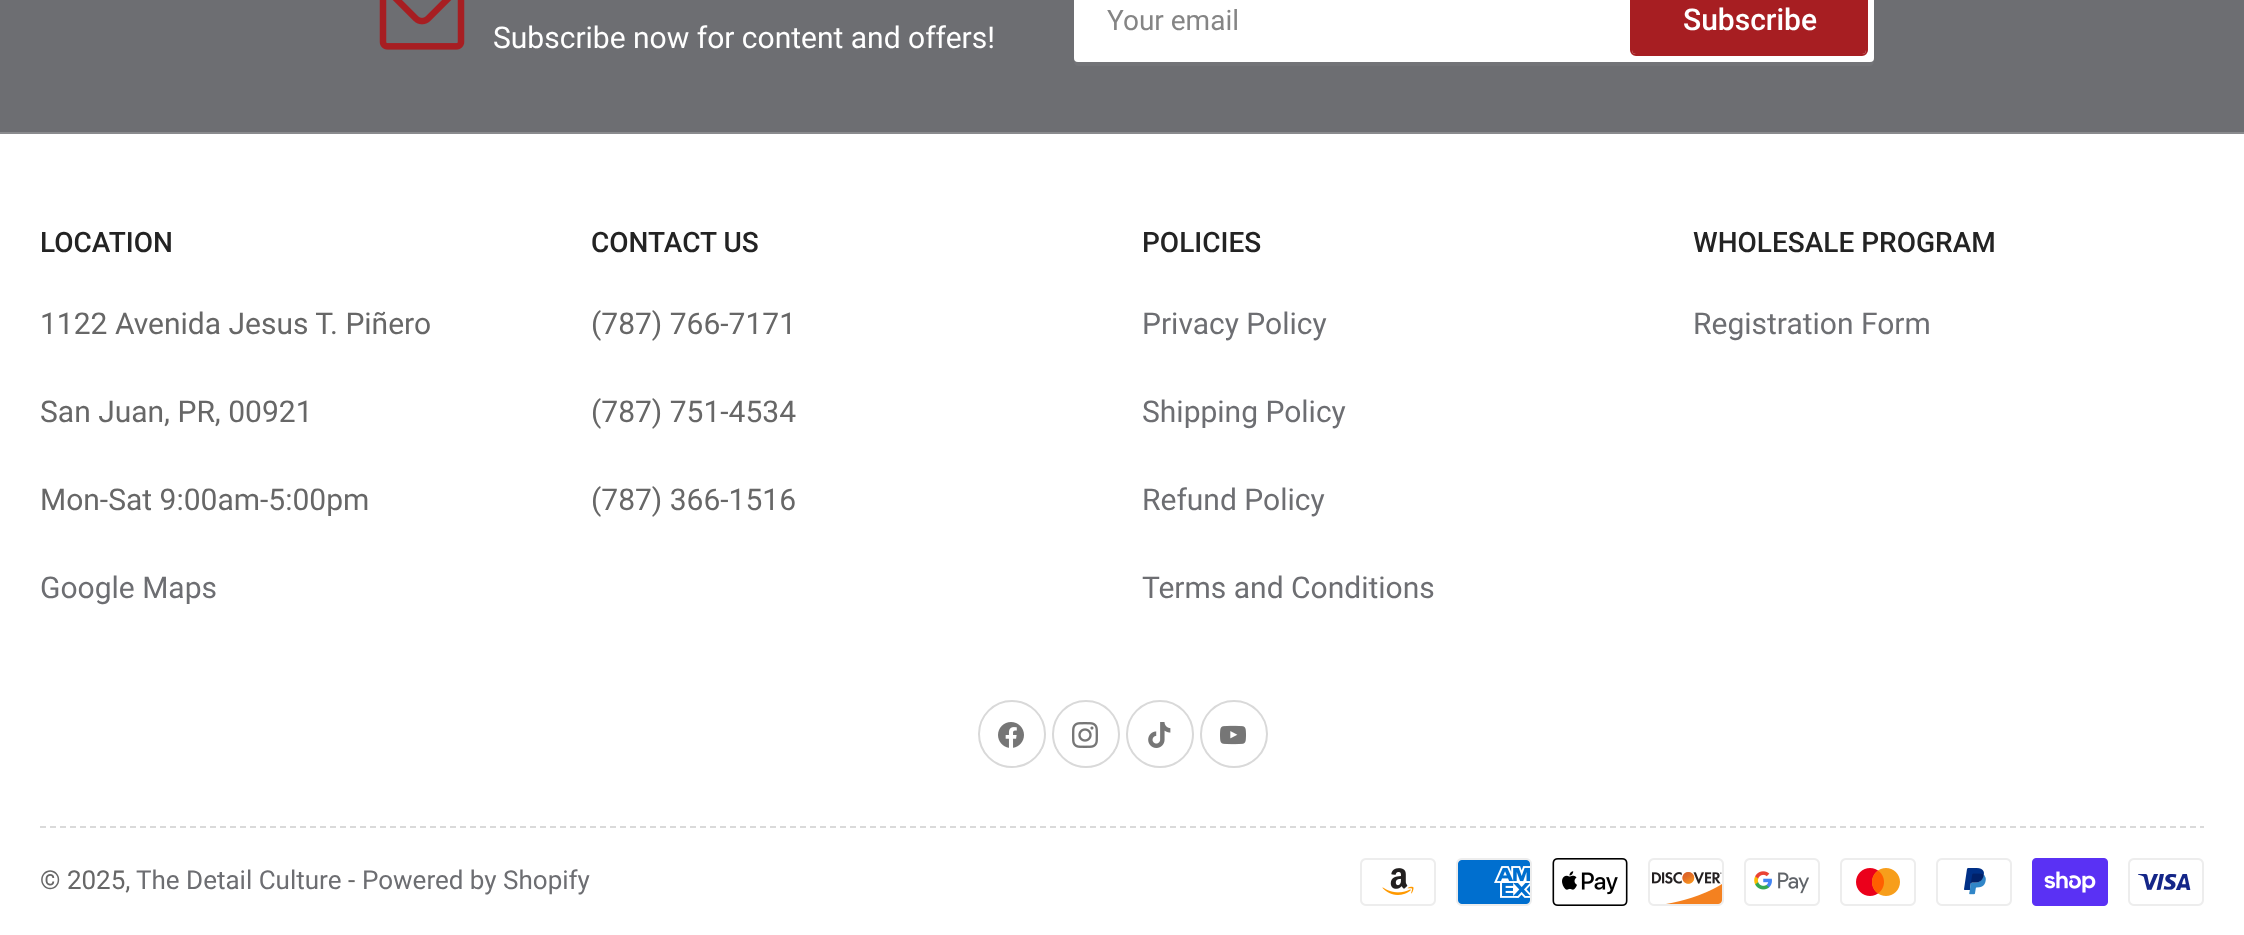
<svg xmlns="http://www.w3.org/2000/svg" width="2244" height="935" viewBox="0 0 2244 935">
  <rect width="100%" height="100%" fill="#fff"/>
  <path d="M0 0h2244v132H0z" fill="#6d6e72"/>
  <path d="M0 132h2244v2H0z" fill="#8a8b8e"/>
  <path d="M1074 58V62C1074 64 1076 66 1078 66H1870C1872 66 1874 64 1874 62V58C1874 60 1872 62 1870 62H1078C1076 62 1074 60 1074 58Z" fill="#727377"/>
  <rect x="1074" y="-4" width="800" height="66" rx="4" fill="#fff"/>
  <rect x="1075" y="-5" width="798" height="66" rx="3" fill="none" stroke="#ffffff33" stroke-width="2"/>
  <rect x="1631" y="-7" width="236" height="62" rx="5" fill="none" stroke="#a71e22" stroke-width="2"/>
  <rect x="1632" y="-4" width="234" height="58" rx="4" fill="#a71e22"/>
  <image x="379" y="0" width="86" height="50" href="img/1.png"/>
  <circle cx="1012" cy="734" r="33" fill="none" stroke="#d9d9d9" stroke-width="2"/>
  <image x="998" y="722" width="26" height="26" href="img/2.png"/>
  <circle cx="1086" cy="734" r="33" fill="none" stroke="#d9d9d9" stroke-width="2"/>
  <image x="1072" y="722" width="26" height="26" href="img/3.png"/>
  <circle cx="1160" cy="734" r="33" fill="none" stroke="#d9d9d9" stroke-width="2"/>
  <image x="1148" y="722" width="23" height="26" href="img/4.png"/>
  <circle cx="1234" cy="734" r="33" fill="none" stroke="#d9d9d9" stroke-width="2"/>
  <image x="1220" y="725" width="26" height="20" href="img/5.png"/>
  <path d="M40 827H2204" fill="none" stroke="#dadada" stroke-width="2" stroke-dasharray="6 4"/>
  <image x="1360" y="858" width="76" height="48" href="img/6.png"/>
  <image x="1456" y="858" width="76" height="48" href="img/7.png"/>
  <image x="1552" y="858" width="76" height="48" href="img/8.png"/>
  <image x="1648" y="858" width="76" height="48" href="img/9.png"/>
  <image x="1744" y="858" width="76" height="48" href="img/10.png"/>
  <image x="1840" y="858" width="76" height="48" href="img/11.png"/>
  <image x="1936" y="858" width="76" height="48" href="img/12.png"/>
  <image x="2032" y="858" width="76" height="48" href="img/13.png"/>
  <image x="2128" y="858" width="76" height="48" href="img/14.png"/>
  <text x="1107" y="30" font-family="Roboto" font-size="28" fill="#858585">Your email</text>
  <text x="1683" y="30" font-family="Roboto" font-size="30" font-weight="500" fill="#fff">Subscribe</text>
  <text x="493" y="48" font-family="Roboto" font-size="30" fill="#fff">Subscribe now for content and offers!</text>
  <text x="40" y="252" font-family="Roboto" font-size="28" font-weight="500" fill="#232323">LOCATION</text>
  <g font-family="Roboto" font-size="30" fill="#676767">
    <text x="40" y="334">1122 Avenida Jesus T. Piñero</text>
    <text x="40" y="422">San Juan, PR, 00921</text>
    <text x="40" y="510">Mon-Sat 9:00am-5:00pm</text>
  </g>
  <text x="40" y="598" font-family="Roboto" font-size="30" fill="#6d6e72">Google Maps</text>
  <text x="591" y="252" font-family="Roboto" font-size="28" font-weight="500" fill="#232323">CONTACT US</text>
  <g font-family="Roboto" font-size="30" fill="#676767">
    <text x="591" y="334">(787) 766-7171</text>
    <text x="591" y="422">(787) 751-4534</text>
    <text x="591" y="510">(787) 366-1516</text>
  </g>
  <text x="1142" y="252" font-family="Roboto" font-size="28" font-weight="500" fill="#232323">POLICIES</text>
  <g font-family="Roboto" font-size="30" fill="#6d6e72">
    <text x="1142" y="334">Privacy Policy</text>
    <text x="1142" y="422">Shipping Policy</text>
    <text x="1142" y="510">Refund Policy</text>
    <text x="1142" y="598">Terms and Conditions</text>
  </g>
  <text x="1693" y="252" font-family="Roboto" font-size="28" font-weight="500" fill="#232323">WHOLESALE PROGRAM</text>
  <text x="1693" y="334" font-family="Roboto" font-size="30" fill="#6d6e72">Registration Form</text>
  <text x="40" y="889" font-family="Roboto" font-size="26" fill="#676767">© 2025,</text>
  <text x="136" y="889" font-family="Roboto" font-size="26" fill="#6d6e72">The Detail Culture</text>
  <text x="348" y="889" font-family="Roboto" font-size="26" fill="#676767">-</text>
  <text x="362" y="889" font-family="Roboto" font-size="26" fill="#6d6e72">Powered by Shopify</text>
</svg>
